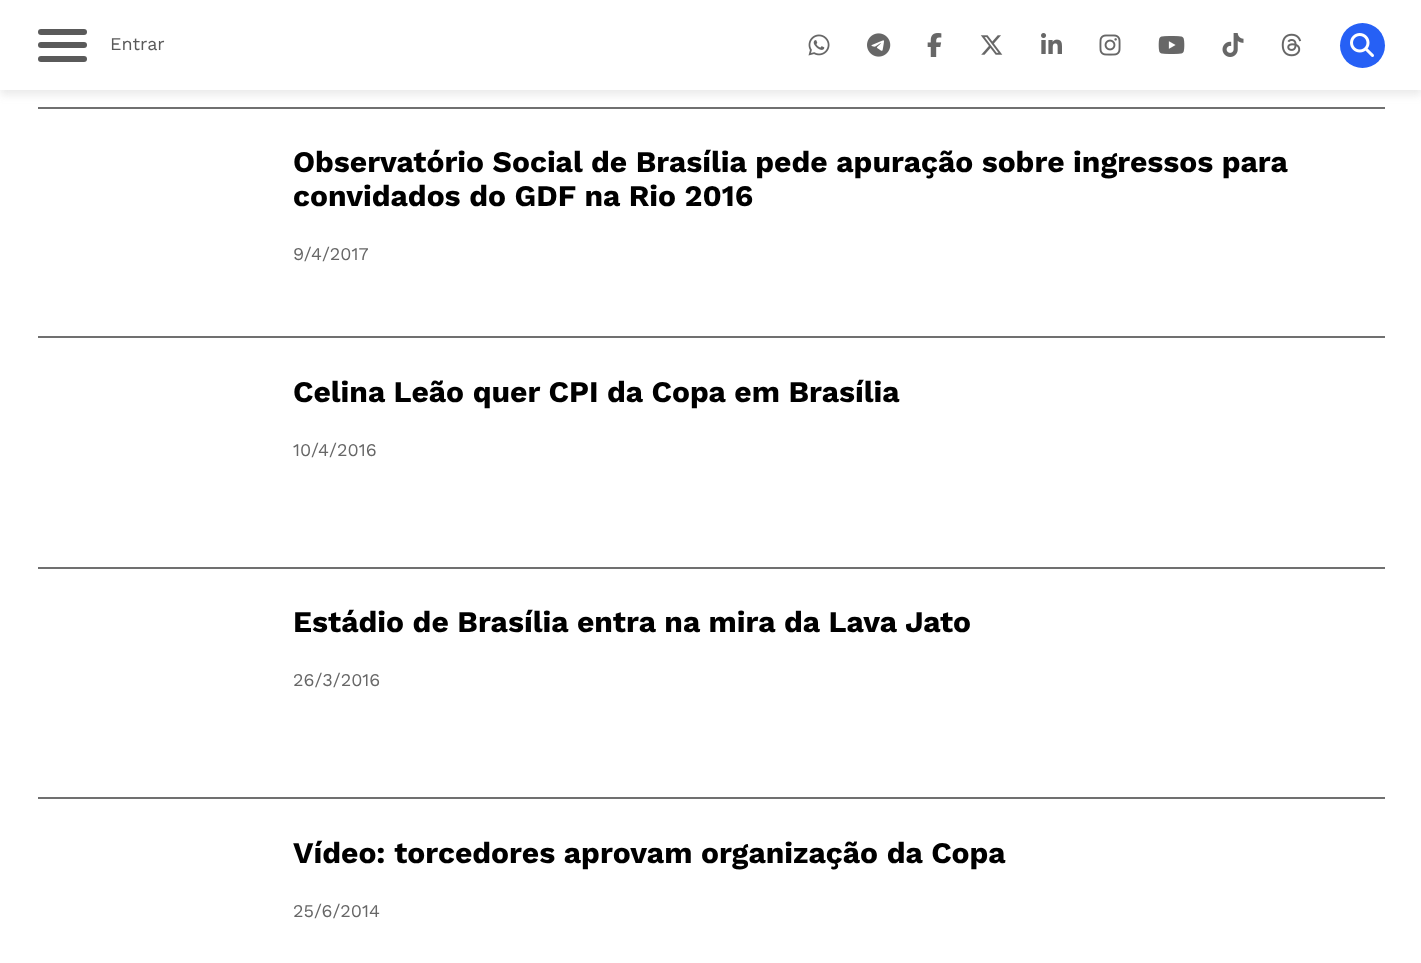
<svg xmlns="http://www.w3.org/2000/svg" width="1421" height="963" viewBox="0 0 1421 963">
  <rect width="100%" height="100%" fill="#fff"/>
  <path d="M38 107h1347v2H38z" fill="#707070"/>
  <path d="M0 5h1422v90H0z" fill="#7a7a7a29" filter="blur(4.5px)"/>
  <path d="M0 0h1421v90H0z" fill="#fff"/>
  <rect x="38" y="29" width="49" height="6" rx="3" fill="#5a5a5a"/>
  <rect x="38" y="42" width="49" height="6" rx="3" fill="#5a5a5a"/>
  <rect x="38" y="56" width="49" height="6" rx="3" fill="#5a5a5a"/>
  <image x="808" y="34" width="22" height="22" href="img/1.png"/>
  <image x="867" y="33" width="24" height="24" href="img/2.png"/>
  <image x="927" y="33" width="15" height="24" href="img/3.png"/>
  <image x="980" y="35" width="23" height="20" href="img/4.png"/>
  <image x="1041" y="33" width="21" height="21" href="img/5.png"/>
  <image x="1099" y="34" width="22" height="22" href="img/6.png"/>
  <image x="1158" y="36" width="27" height="18" href="img/7.png"/>
  <image x="1222" y="33" width="22" height="24" href="img/8.png"/>
  <image x="1281" y="33" width="21" height="24" href="img/9.png"/>
  <circle cx="1362.5" cy="45.5" r="22.5" fill="#2660f5"/>
  <image x="1350" y="33" width="24" height="24" href="img/10.png"/>
  <path d="M38 336h1347v2H38z" fill="#707070"/>
  <path d="M38 567h1347v2H38z" fill="#707070"/>
  <path d="M38 797h1347v2H38z" fill="#707070"/>
  <text x="110" y="50" font-family="Work Sans" font-size="18" fill="#5a5a5a">Entrar</text>
  <g font-family="Work Sans" font-size="30" font-weight="bold" fill="#000">
    <text x="293" y="172">Observatório Social de Brasília pede apuração sobre ingressos para</text>
    <text x="293" y="206">convidados do GDF na Rio 2016</text>
  </g>
  <text x="293" y="260" font-family="Work Sans" font-size="18" fill="#676767">9/4/2017</text>
  <text x="293" y="402" font-family="Work Sans" font-size="30" font-weight="bold" fill="#000">Celina Leão quer CPI da Copa em Brasília</text>
  <text x="293" y="456" font-family="Work Sans" font-size="18" fill="#676767">10/4/2016</text>
  <text x="293" y="632" font-family="Work Sans" font-size="30" font-weight="bold" fill="#000">Estádio de Brasília entra na mira da Lava Jato</text>
  <text x="293" y="686" font-family="Work Sans" font-size="18" fill="#676767">26/3/2016</text>
  <text x="293" y="863" font-family="Work Sans" font-size="30" font-weight="bold" fill="#000">Vídeo: torcedores aprovam organização da Copa</text>
  <text x="293" y="917" font-family="Work Sans" font-size="18" fill="#676767">25/6/2014</text>
</svg>
